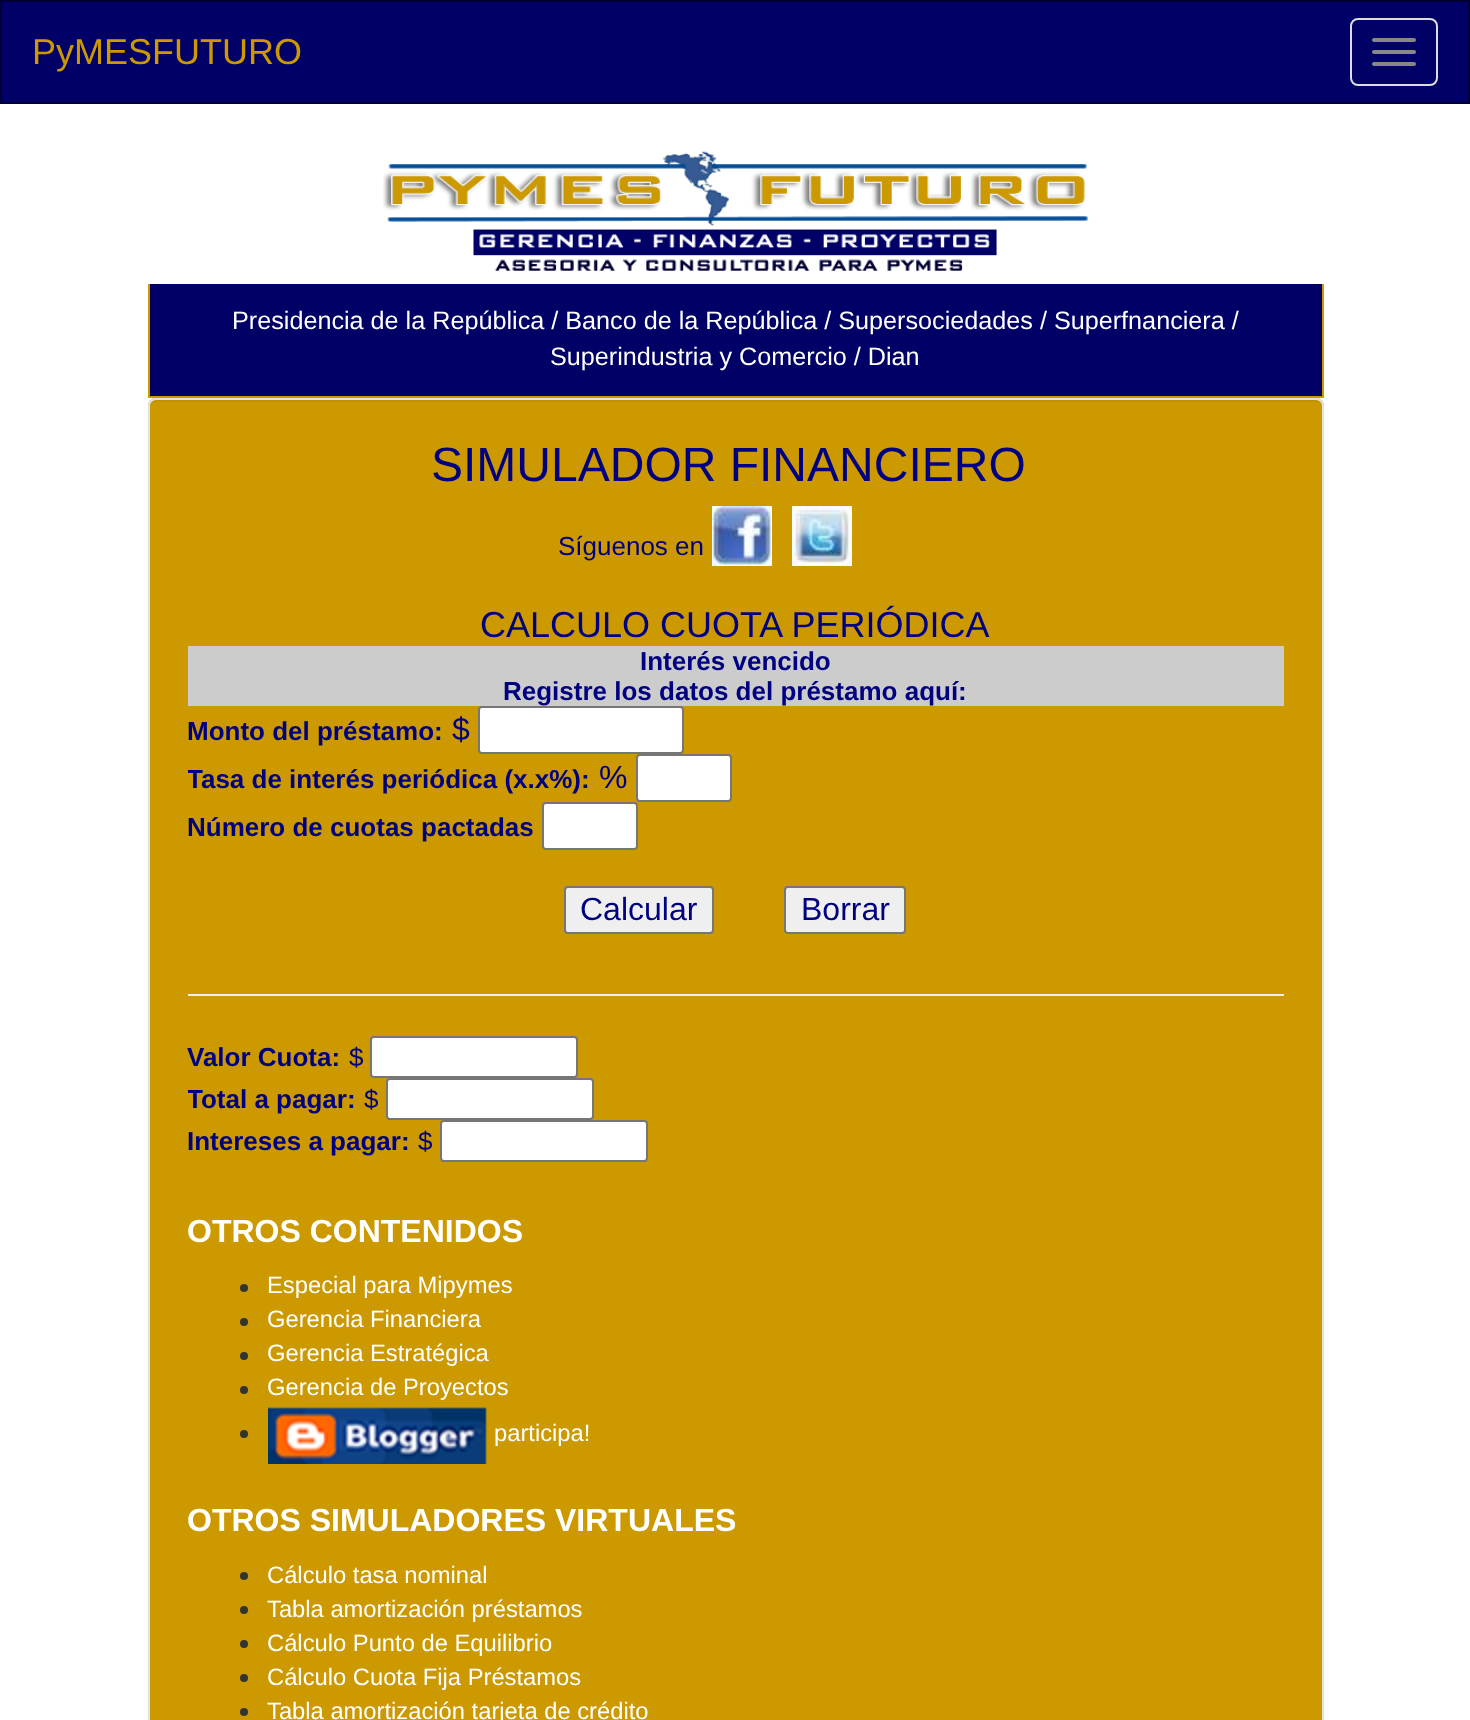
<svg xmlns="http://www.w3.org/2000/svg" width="1470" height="1720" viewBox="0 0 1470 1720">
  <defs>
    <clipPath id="clip1"><path d="M188 438h1096v756H188z"/></clipPath>
  </defs>
  <rect width="100%" height="100%" fill="#fff"/>
  <path d="M1 1h1468v102H1z" fill="#006" stroke="#003" stroke-width="2"/>
  <rect x="1351" y="19" width="86" height="66" rx="7" fill="none" stroke="#ddd" stroke-width="2"/>
  <rect x="1372" y="38" width="44" height="4" rx="2" fill="#888"/>
  <rect x="1372" y="50" width="44" height="4" rx="2" fill="#888"/>
  <rect x="1372" y="62" width="44" height="4" rx="2" fill="#888"/>
  <path d="M149 283h1174v114H149z" fill="#006" stroke="#c90" stroke-width="2"/>
  <path d="M148 282h1176v2H148z" fill="#fff"/>
  <image x="383" y="151" width="706" height="120" href="img/1.png"/>
  <rect x="148" y="398" width="1176" height="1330" rx="8" fill="#c90"/>
  <path d="M156 402H1316C1319 402 1322 405 1322 408V406C1322 403 1319 400 1316 400H156C153 400 150 403 150 406V408C150 405 153 402 156 402Z" fill="#c29100"/>
  <rect x="149" y="399" width="1174" height="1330" rx="7" fill="none" stroke="#e3e3e3" stroke-width="2"/>
  <image x="712" y="506" width="60" height="60" href="img/2.png"/>
  <image x="792" y="506" width="60" height="60" href="img/3.png"/>
  <path d="M188 646h1096v60H188z" fill="#ccc"/>
  <rect x="479" y="707" width="204" height="46" rx="3" fill="#fff" stroke="#767676" stroke-width="2"/>
  <rect x="637" y="755" width="94" height="46" rx="3" fill="#fff" stroke="#767676" stroke-width="2"/>
  <rect x="543" y="803" width="94" height="46" rx="3" fill="#fff" stroke="#767676" stroke-width="2"/>
  <rect x="565" y="887" width="148" height="46" rx="3" fill="#efefef" stroke="#767676" stroke-width="2"/>
  <rect x="785" y="887" width="120" height="46" rx="3" fill="#efefef" stroke="#767676" stroke-width="2"/>
  <path d="M188 994h1096v2H188z" fill="#eee"/>
  <rect x="371" y="1037" width="206" height="40" rx="3" fill="#fff" stroke="#767676" stroke-width="2"/>
  <rect x="387" y="1079" width="206" height="40" rx="3" fill="#fff" stroke="#767676" stroke-width="2"/>
  <rect x="441" y="1121" width="206" height="40" rx="3" fill="#fff" stroke="#767676" stroke-width="2"/>
  <circle cx="244" cy="1288" r="4" fill="#333"/>
  <circle cx="244" cy="1322" r="4" fill="#333"/>
  <circle cx="244" cy="1356" r="4" fill="#333"/>
  <circle cx="244" cy="1390" r="4" fill="#333"/>
  <circle cx="244" cy="1434" r="4" fill="#333"/>
  <image x="268" y="1407" width="219" height="57" href="img/4.png"/>
  <circle cx="244" cy="1576" r="4" fill="#333"/>
  <circle cx="244" cy="1610" r="4" fill="#333"/>
  <circle cx="244" cy="1644" r="4" fill="#333"/>
  <circle cx="244" cy="1678" r="4" fill="#333"/>
  <circle cx="244" cy="1712" r="4" fill="#333"/>
  <text x="32" y="64" font-family="Liberation Sans" font-size="36" fill="#c90">PyMESFUTURO</text>
  <g font-family="Liberation Sans" font-size="25.2" fill="#fff">
    <text x="232" y="329">Presidencia de la República / Banco de la República / Supersociedades / Superfnanciera /</text>
    <text x="550" y="365">Superindustria y Comercio / Dian</text>
  </g>
  <text x="431" y="481" font-family="Liberation Sans" font-size="48" fill="#000080">SIMULADOR FINANCIERO</text>
  <text x="558" y="555" font-family="Liberation Sans" font-size="26" fill="#000080">Síguenos en</text>
  <text x="480" y="637" font-family="Liberation Sans" font-size="36" fill="#000080">CALCULO CUOTA PERIÓDICA</text>
  <g font-family="Liberation Sans" font-size="26" font-weight="bold" fill="#000080">
    <text x="640" y="670">Interés vencido</text>
    <text x="503" y="700">Registre los datos del préstamo aquí:</text>
    <text x="187" y="740">Monto del préstamo:</text>
  </g>
  <text x="452" y="740" font-family="Liberation Sans" font-size="32" fill="#000080">$</text>
  <g clip-path="url(#clip1)">
    <text x="187" y="788" font-family="Liberation Sans" font-size="26" font-weight="bold" fill="#000080">Tasa de interés periódica (x.x%):</text>
  </g>
  <text x="599" y="788" font-family="Liberation Sans" font-size="32" fill="#000080">%</text>
  <text x="187" y="836" font-family="Liberation Sans" font-size="26" font-weight="bold" fill="#000080">Número de cuotas pactadas</text>
  <g font-family="Liberation Sans" font-size="32" fill="#000080">
    <text x="580" y="920">Calcular</text>
    <text x="801" y="920">Borrar</text>
  </g>
  <text x="187" y="1066" font-family="Liberation Sans" font-size="26" font-weight="bold" fill="#000080">Valor Cuota:</text>
  <text x="349" y="1066" font-family="Liberation Sans" font-size="26" fill="#000080">$</text>
  <g clip-path="url(#clip1)">
    <text x="187" y="1108" font-family="Liberation Sans" font-size="26" font-weight="bold" fill="#000080">Total a pagar:</text>
  </g>
  <text x="364" y="1108" font-family="Liberation Sans" font-size="26" fill="#000080">$</text>
  <text x="187" y="1150" font-family="Liberation Sans" font-size="26" font-weight="bold" fill="#000080">Intereses a pagar:</text>
  <text x="418" y="1150" font-family="Liberation Sans" font-size="26" fill="#000080">$</text>
  <text x="187" y="1242" font-family="Liberation Sans" font-size="32" font-weight="bold" fill="#fff">OTROS CONTENIDOS</text>
  <g font-family="Liberation Sans" font-size="23.75" fill="#fff">
    <text x="267" y="1293">Especial para Mipymes</text>
    <text x="267" y="1327">Gerencia Financiera</text>
    <text x="267" y="1361">Gerencia Estratégica</text>
    <text x="267" y="1395">Gerencia de Proyectos</text>
    <text x="494" y="1441">participa!</text>
  </g>
  <text x="187" y="1531" font-family="Liberation Sans" font-size="32" font-weight="bold" fill="#fff">OTROS SIMULADORES VIRTUALES</text>
  <g font-family="Liberation Sans" font-size="23.75" fill="#fff">
    <text x="267" y="1583">Cálculo tasa nominal</text>
    <text x="267" y="1617">Tabla amortización préstamos</text>
    <text x="267" y="1651">Cálculo Punto de Equilibrio</text>
    <text x="267" y="1685">Cálculo Cuota Fija Préstamos</text>
    <text x="267" y="1719">Tabla amortización tarjeta de crédito</text>
  </g>
</svg>
